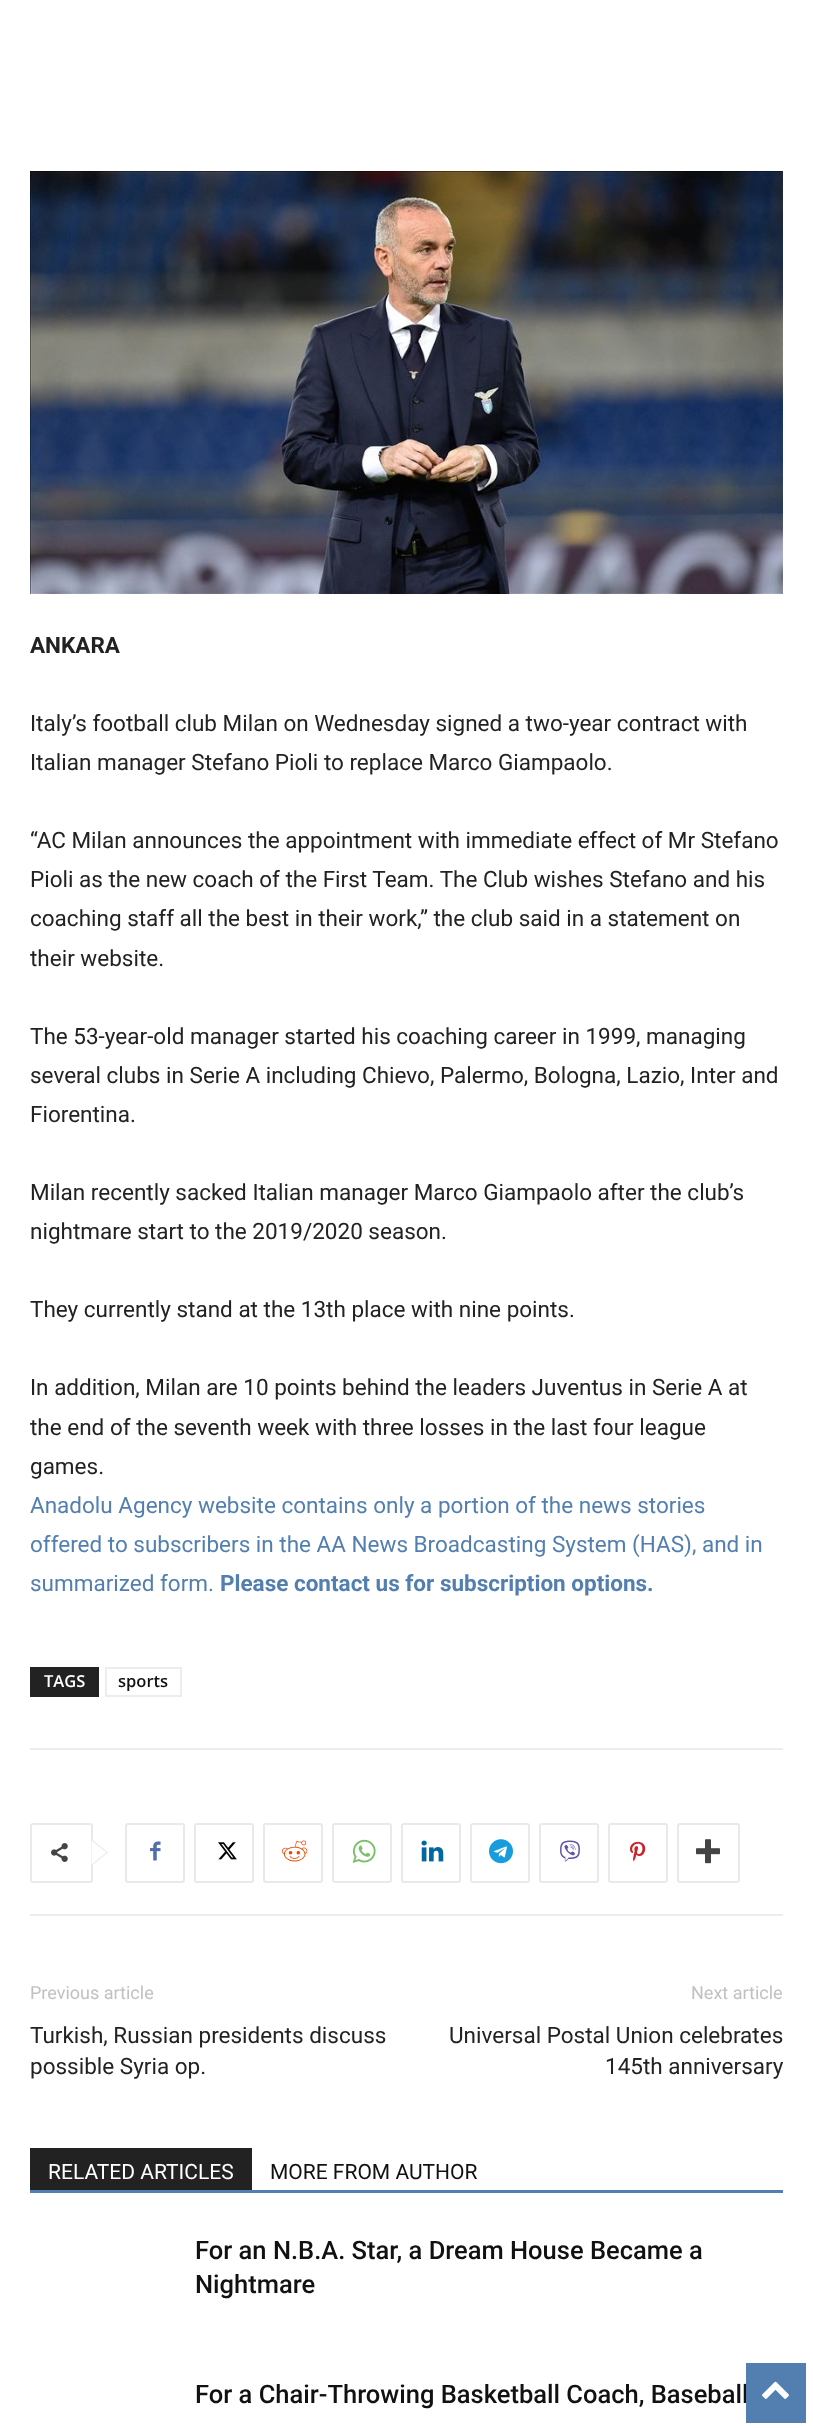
<svg xmlns="http://www.w3.org/2000/svg" width="813" height="2428" viewBox="0 0 813 2428">
  <rect width="100%" height="100%" fill="#fff"/>
  <image x="30" y="171" width="753" height="423" href="img/1.png"/>
  <path d="M30 1667h69v30H30z" fill="#222"/>
  <path d="M106 1668h75v28H106z" fill="none" stroke="#ededed" stroke-width="2"/>
  <path d="M30 1748h753v2H30z" fill="#ededed"/>
  <path d="M30 1914h753v2H30z" fill="#ededed"/>
  <rect x="31" y="1824" width="61" height="58" rx="2" fill="none" stroke="#e9e9e9" stroke-width="2"/>
  <path d="M91.5 1866V1839L108 1852.5Z" fill="#e9e9e9"/>
  <image x="51" y="1843" width="17" height="19" href="img/2.png"/>
  <path d="M91.5 1864.5V1840.5L106.5 1852.5Z" fill="#fff"/>
  <rect x="126" y="1824" width="58" height="58" rx="2" fill="none" stroke="#e9e9e9" stroke-width="2"/>
  <image x="150" y="1841" width="11" height="20" href="img/3.png"/>
  <rect x="195" y="1824" width="58" height="58" rx="2" fill="none" stroke="#e9e9e9" stroke-width="2"/>
  <image x="218" y="1842" width="19" height="18" href="img/4.png"/>
  <rect x="264" y="1824" width="58" height="58" rx="2" fill="none" stroke="#e9e9e9" stroke-width="2"/>
  <image x="282" y="1840" width="26" height="22" href="img/5.png"/>
  <rect x="333" y="1824" width="58" height="58" rx="2" fill="none" stroke="#e9e9e9" stroke-width="2"/>
  <image x="352" y="1839" width="24" height="24" href="img/6.png"/>
  <rect x="402" y="1824" width="58" height="58" rx="2" fill="none" stroke="#e9e9e9" stroke-width="2"/>
  <image x="421" y="1840" width="23" height="22" href="img/7.png"/>
  <rect x="471" y="1824" width="58" height="58" rx="2" fill="none" stroke="#e9e9e9" stroke-width="2"/>
  <image x="489" y="1839" width="24" height="25" href="img/8.png"/>
  <rect x="540" y="1824" width="58" height="58" rx="2" fill="none" stroke="#e9e9e9" stroke-width="2"/>
  <image x="560" y="1840" width="20" height="22" href="img/9.png"/>
  <rect x="609" y="1824" width="58" height="58" rx="2" fill="none" stroke="#e9e9e9" stroke-width="2"/>
  <image x="630" y="1841" width="16" height="21" href="img/10.png"/>
  <rect x="678" y="1824" width="61" height="58" rx="2" fill="none" stroke="#e9e9e9" stroke-width="2"/>
  <image x="696" y="1839" width="24" height="25" href="img/11.png"/>
  <path d="M30 2190h753v3H30z" fill="#527fb0"/>
  <path d="M30 2148h222v42H30z" fill="#222"/>
  <text x="30" y="653" font-family="Roboto" font-size="22.5" font-weight="bold" fill="#222">ANKARA</text>
  <g font-family="Roboto" font-size="22.5" fill="#222">
    <text x="30" y="731">Italy’s football club Milan on Wednesday signed a two-year contract with</text>
    <text x="30" y="770">Italian manager Stefano Pioli to replace Marco Giampaolo.</text>
    <text x="30" y="848">“AC Milan announces the appointment with immediate effect of Mr Stefano</text>
    <text x="30" y="887">Pioli as the new coach of the First Team. The Club wishes Stefano and his</text>
    <text x="30" y="926">coaching staff all the best in their work,” the club said in a statement on</text>
    <text x="30" y="966">their website.</text>
    <text x="30" y="1044">The 53-year-old manager started his coaching career in 1999, managing</text>
    <text x="30" y="1083">several clubs in Serie A including Chievo, Palermo, Bologna, Lazio, Inter and</text>
    <text x="30" y="1122">Fiorentina.</text>
    <text x="30" y="1200">Milan recently sacked Italian manager Marco Giampaolo after the club’s</text>
    <text x="30" y="1239">nightmare start to the 2019/2020 season.</text>
    <text x="30" y="1317">They currently stand at the 13th place with nine points.</text>
    <text x="30" y="1395">In addition, Milan are 10 points behind the leaders Juventus in Serie A at</text>
    <text x="30" y="1435">the end of the seventh week with three losses in the last four league</text>
    <text x="30" y="1474">games.</text>
  </g>
  <g font-family="Roboto" font-size="22.5" fill="#527fb0">
    <text x="30" y="1513">Anadolu Agency website contains only a portion of the news stories</text>
    <text x="30" y="1552">offered to subscribers in the AA News Broadcasting System (HAS), and in</text>
    <text x="30" y="1591">summarized form.</text>
  </g>
  <text x="220" y="1591" font-family="Roboto" font-size="22.5" font-weight="bold" fill="#527fb0">Please contact us for subscription options.</text>
  <text x="44" y="1687" font-family="Open Sans" font-size="16.5" font-weight="600" fill="#fff">TAGS</text>
  <text x="118" y="1687" font-family="Open Sans" font-size="16.5" font-weight="600" fill="#111">sports</text>
  <text x="30" y="1999" font-family="Roboto" font-size="18" fill="#c1c1c1">Previous article</text>
  <g font-family="Roboto" font-size="22.5" fill="#222">
    <text x="30" y="2043">Turkish, Russian presidents discuss</text>
    <text x="30" y="2074">possible Syria op.</text>
  </g>
  <text x="691" y="1999" font-family="Roboto" font-size="18" fill="#c1c1c1">Next article</text>
  <g font-family="Roboto" font-size="22.5" fill="#222">
    <text x="449" y="2043">Universal Postal Union celebrates</text>
    <text x="605" y="2074">145th anniversary</text>
  </g>
  <text x="48" y="2179" font-family="Roboto" font-size="21" fill="#fff">RELATED ARTICLES</text>
  <text x="270" y="2179" font-family="Roboto" font-size="21" fill="#111">MORE FROM AUTHOR</text>
  <g font-family="Roboto" font-size="25.5" font-weight="500" fill="#111">
    <text x="195" y="2259">For an N.B.A. Star, a Dream House Became a</text>
    <text x="195" y="2293">Nightmare</text>
    <text x="195" y="2403">For a Chair-Throwing Basketball Coach, Baseball</text>
  </g>
  <path d="M746 2363h60v60H746z" fill="#527fb0"/>
  <image x="762" y="2381" width="27" height="18" href="img/12.png"/>
</svg>
